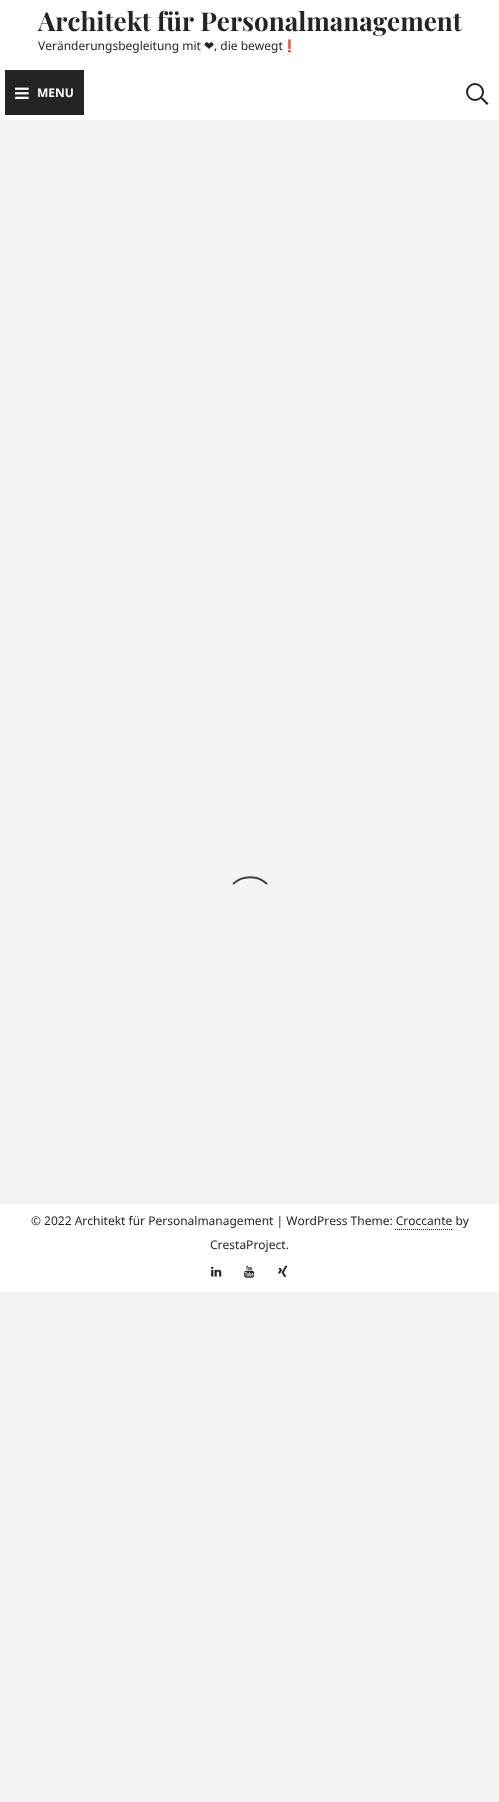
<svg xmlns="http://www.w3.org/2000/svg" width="499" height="1802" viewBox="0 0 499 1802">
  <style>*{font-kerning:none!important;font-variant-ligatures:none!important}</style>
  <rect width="100%" height="100%" fill="#f4f4f4"/>
  <path d="M0 0h499v120H0z" fill="#fff"/>
  <path d="M5 70h79v45H5z" fill="#242423"/>
  <image x="15" y="87" width="14" height="12" href="img/1.png"/>
  <circle cx="475" cy="92" r="8" fill="none" stroke="#242423" stroke-width="2"/>
  <path d="M482 97L488.5 103.5L487 105L480.5 98.5Z" fill="#242423"/>
  <path d="M0 1204h499v88H0z" fill="#fff"/>
  <path d="M395 1229.5H452" fill="none" stroke="#242423" stroke-dasharray="1 1"/>
  <image x="211" y="1266" width="11" height="11" href="img/2.png"/>
  <image x="244" y="1265" width="11" height="13" href="img/3.png"/>
  <image x="278" y="1265" width="10" height="12" href="img/4.png"/>
  <path d="M233 884C242.5 875 257.5 875 267 884" fill="none" stroke="#404040" stroke-width="2"/>
  <text x="38" y="31" font-family="Playfair Display" font-size="26" font-weight="bold" fill="#242423">Architekt für Personalmanagement</text>
  <text x="38" y="50" font-family="Noto Sans" font-size="12" fill="#242423">Veränderungsbegleitung mit</text>
  <text x="204" y="50" font-family="DejaVu Sans" font-size="12" fill="#242423">❤</text>
  <text x="214" y="50" font-family="Noto Sans" font-size="12" fill="#242423">, die bewegt</text>
  <text x="282" y="50" font-family="Noto Color Emoji" font-size="12" fill="#242423">❗</text>
  <text x="37" y="97" font-family="Noto Sans" font-size="12" font-weight="bold" fill="#fff">MENU</text>
  <g font-family="Noto Sans" font-size="12" fill="#242423">
    <text x="31" y="1225">© 2022 Architekt für Personalmanagement | WordPress Theme: Croccante by</text>
    <text x="210" y="1249">CrestaProject.</text>
  </g>
</svg>
